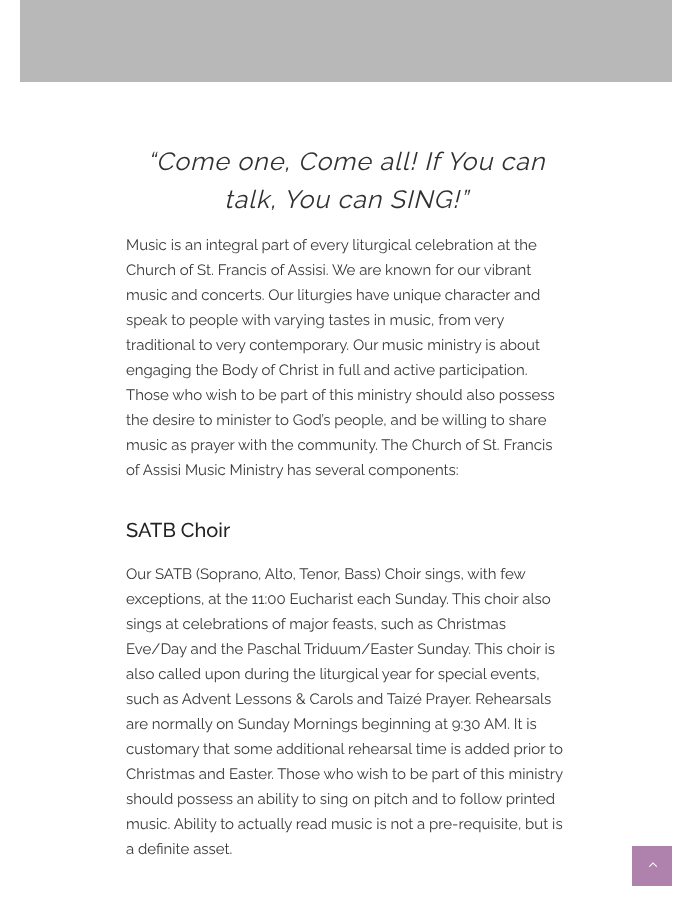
<svg xmlns="http://www.w3.org/2000/svg" width="692" height="906" viewBox="0 0 692 906">
  <rect width="100%" height="100%" fill="#fff"/>
  <path d="M20 0h652v82H20z" fill="#b8b8b8"/>
  <path d="M632 846h40v40H632z" fill="#af82ad"/>
  <image x="649" y="862" width="8" height="5" href="img/1.png"/>
  <g font-family="Raleway" font-size="25" font-style="italic" letter-spacing="1" fill="#303132">
    <text x="147" y="170">“Come one, Come all! If You can</text>
    <text x="224" y="208">talk, You can SING!”</text>
  </g>
  <g font-family="Raleway" font-size="15" fill="#37383a">
    <text x="126" y="250">Music is an integral part of every liturgical celebration at the</text>
    <text x="126" y="275">Church of St. Francis of Assisi. We are known for our vibrant</text>
    <text x="126" y="300">music and concerts. Our liturgies have unique character and</text>
    <text x="126" y="325">speak to people with varying tastes in music, from very</text>
    <text x="126" y="350">traditional to very contemporary. Our music ministry is about</text>
    <text x="126" y="375">engaging the Body of Christ in full and active participation.</text>
    <text x="126" y="400">Those who wish to be part of this ministry should also possess</text>
    <text x="126" y="425">the desire to minister to God’s people, and be willing to share</text>
    <text x="126" y="450">music as prayer with the community. The Church of St. Francis</text>
    <text x="126" y="475">of Assisi Music Ministry has several components:</text>
  </g>
  <text x="126" y="537" font-family="Raleway" font-size="20" font-weight="500" fill="#222">SATB Choir</text>
  <g font-family="Raleway" font-size="15" fill="#37383a">
    <text x="126" y="579">Our SATB (Soprano, Alto, Tenor, Bass) Choir sings, with few</text>
    <text x="126" y="604">exceptions, at the 11:00 Eucharist each Sunday. This choir also</text>
    <text x="126" y="629">sings at celebrations of major feasts, such as Christmas</text>
    <text x="126" y="654">Eve/Day and the Paschal Triduum/Easter Sunday. This choir is</text>
    <text x="126" y="679">also called upon during the liturgical year for special events,</text>
    <text x="126" y="704">such as Advent Lessons &amp; Carols and Taizé Prayer. Rehearsals</text>
    <text x="126" y="729">are normally on Sunday Mornings beginning at 9:30 AM. It is</text>
    <text x="126" y="754">customary that some additional rehearsal time is added prior to</text>
    <text x="126" y="779">Christmas and Easter. Those who wish to be part of this ministry</text>
    <text x="126" y="804">should possess an ability to sing on pitch and to follow printed</text>
    <text x="126" y="829">music. Ability to actually read music is not a pre-requisite, but is</text>
    <text x="126" y="854">a definite asset.</text>
  </g>
</svg>
